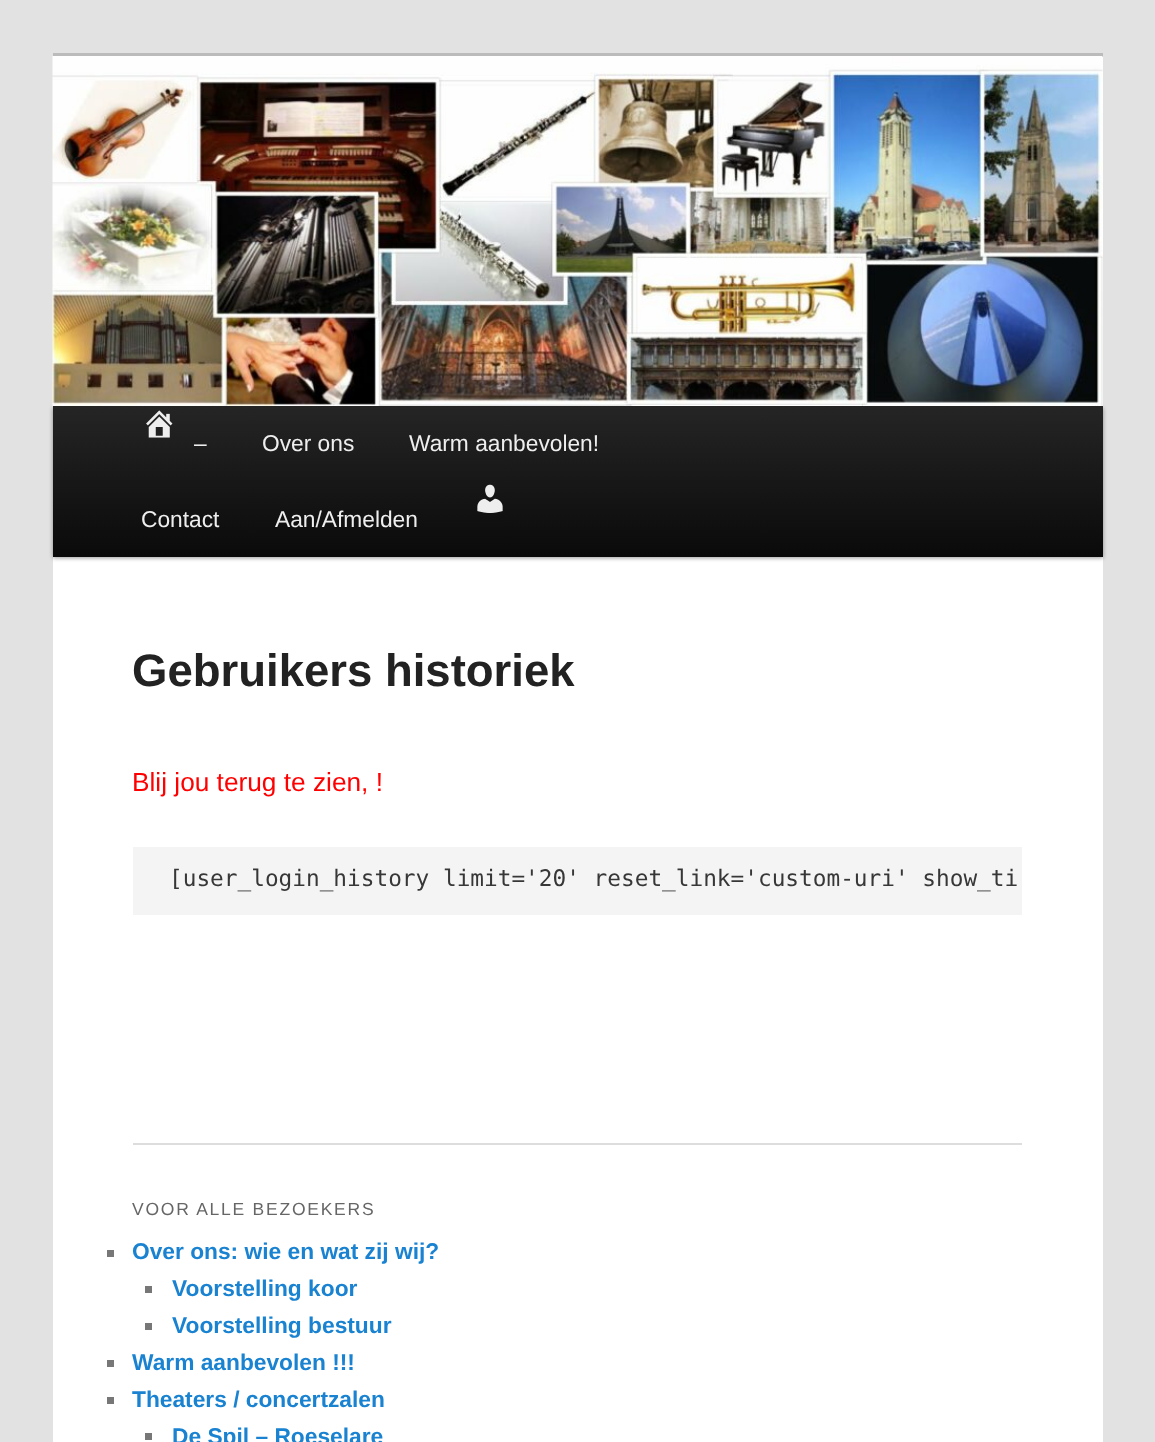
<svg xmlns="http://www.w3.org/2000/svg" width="1155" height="1442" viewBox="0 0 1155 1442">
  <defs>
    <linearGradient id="g1" gradientUnits="userSpaceOnUse" x1="578" y1="406" x2="578" y2="557"><stop offset="0" stop-color="#252525"/><stop offset="1" stop-color="#0a0a0a"/></linearGradient>
  </defs>
  <rect width="100%" height="100%" fill="#e2e2e2"/>
  <path d="M53 57h1050v1385H53z" fill="#fff"/>
  <path d="M53 53h1050v4H53z" fill="#bbb"/>
  <path d="M53 408h1050v150H53z" fill="#00000066" filter="blur(2px)"/>
  <image x="52" y="56" width="1051" height="350" href="img/1.png"/>
  <path d="M53 406h1050v151H53z" fill="url(#g1)"/>
  <image x="146" y="410" width="27" height="28" href="img/2.png"/>
  <image x="477" y="484" width="26" height="29" href="img/3.png"/>
  <path d="M133 1143h889v2H133z" fill="#ddd"/>
  <path d="M133 847h889v68H133z" fill="#f4f4f4"/>
  <path d="M107 1250h7v7H107z" fill="#777"/>
  <path d="M145 1286h7v7H145z" fill="#777"/>
  <path d="M145 1323h7v7H145z" fill="#777"/>
  <path d="M107 1360h7v7H107z" fill="#777"/>
  <path d="M107 1397h7v7H107z" fill="#777"/>
  <path d="M145 1433h7v7H145z" fill="#777"/>
  <g font-family="Liberation Sans" font-size="22.75" fill="#eee">
    <text x="194" y="451">–</text>
    <text x="262" y="451">Over ons</text>
    <text x="409" y="451">Warm aanbevolen!</text>
    <text x="141" y="527">Contact</text>
    <text x="275" y="527">Aan/Afmelden</text>
  </g>
  <text x="132" y="686" font-family="Liberation Sans" font-size="45.5" font-weight="bold" fill="#222">Gebruikers historiek</text>
  <text x="132" y="791" font-family="Liberation Sans" font-size="26.25" fill="#f00">Blij jou terug te zien, !</text>
  <text x="169" y="886" font-family="DejaVu Sans Mono" font-size="22.75" fill="#373737">[user_login_history limit='20' reset_link='custom-uri' show_ti</text>
  <text x="132" y="1215" font-family="Liberation Sans" font-size="17.5" letter-spacing="1.75" fill="#666">VOOR ALLE BEZOEKERS</text>
  <g font-family="Liberation Sans" font-size="22.75" font-weight="bold" fill="#1982d1">
    <text x="132" y="1259">Over ons: wie en wat zij wij?</text>
    <text x="172" y="1296">Voorstelling koor</text>
    <text x="172" y="1333">Voorstelling bestuur</text>
    <text x="132" y="1370">Warm aanbevolen !!!</text>
    <text x="132" y="1407">Theaters / concertzalen</text>
    <text x="172" y="1444">De Spil – Roeselare</text>
  </g>
</svg>
